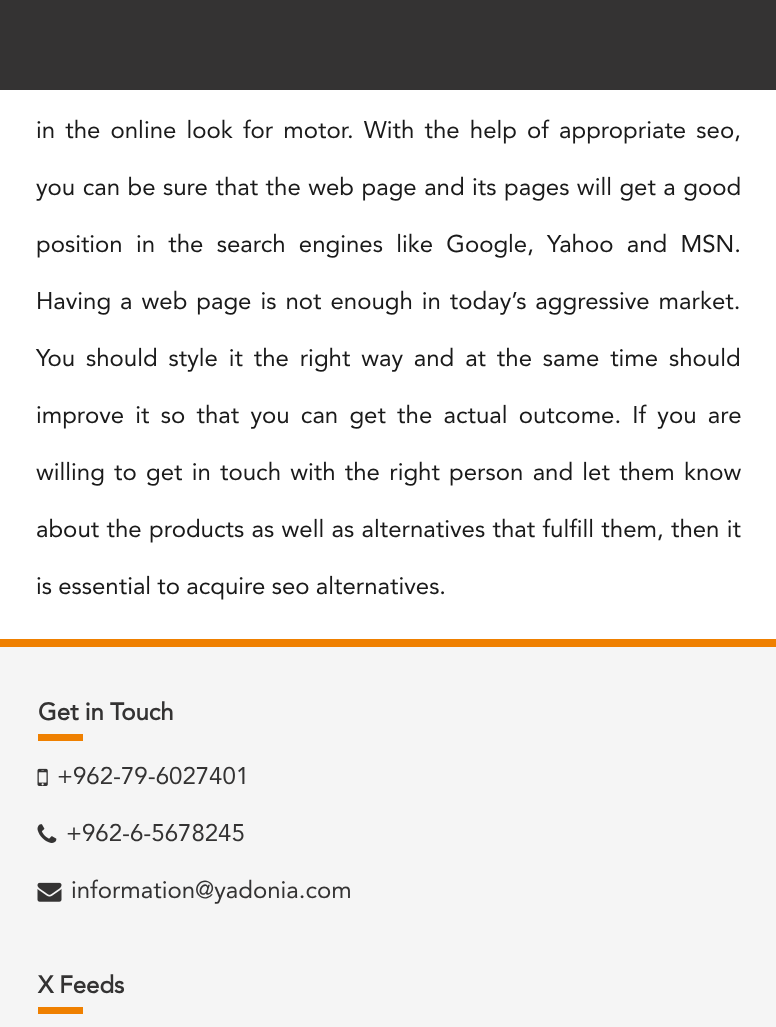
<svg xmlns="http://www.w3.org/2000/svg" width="776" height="1027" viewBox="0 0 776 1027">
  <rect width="100%" height="100%" fill="#fff"/>
  <path d="M0 0h776v90H0z" fill="#343333"/>
  <path d="M0 639h776v8H0z" fill="#ef8000"/>
  <path d="M0 647h776v380H0z" fill="#f5f5f5"/>
  <path d="M38 734h45v4H38z" fill="#ef8000"/>
  <path d="M78 734h5v7H78z" fill="#ef8000"/>
  <path d="M38 738h45v3H38z" fill="#ef8000"/>
  <image x="37" y="768" width="11" height="18" href="img/1.png"/>
  <image x="37" y="824" width="20" height="19" href="img/2.png"/>
  <image x="37" y="882" width="25" height="20" href="img/3.png"/>
  <path d="M38 1007h45v4H38z" fill="#ef8000"/>
  <path d="M78 1007h5v7H78z" fill="#ef8000"/>
  <path d="M38 1011h45v3H38z" fill="#ef8000"/>
  <g font-family="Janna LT" font-size="24" fill="#1a1a1a">
    <text x="36" y="138" word-spacing="3.9">in the online look for motor. With the help of appropriate seo,</text>
    <text x="36" y="195" word-spacing="1.25">you can be sure that the web page and its pages will get a good</text>
    <text x="36" y="252" word-spacing="7">position in the search engines like Google, Yahoo and MSN.</text>
    <text x="36" y="309" word-spacing="2.75">Having a web page is not enough in today’s aggressive market.</text>
    <text x="36" y="366" word-spacing="4.6">You should style it the right way and at the same time should</text>
    <text x="36" y="423" word-spacing="5">improve it so that you can get the actual outcome. If you are</text>
    <text x="36" y="480" word-spacing="3">willing to get in touch with the right person and let them know</text>
    <text x="36" y="537" word-spacing="1.1">about the products as well as alternatives that fulfill them, then it</text>
    <text x="36" y="594">is essential to acquire seo alternatives.</text>
  </g>
  <text x="38" y="720" font-family="Janna LT" font-size="24" font-weight="bold" fill="#343333">Get in Touch</text>
  <g font-family="Janna LT" font-size="24" fill="#343333">
    <text x="57" y="784">+962-79-6027401</text>
    <text x="66" y="841">+962-6-5678245</text>
    <text x="71" y="898">information@yadonia.com</text>
  </g>
  <text x="38" y="993" font-family="Janna LT" font-size="24" font-weight="bold" fill="#343333">X Feeds</text>
</svg>
